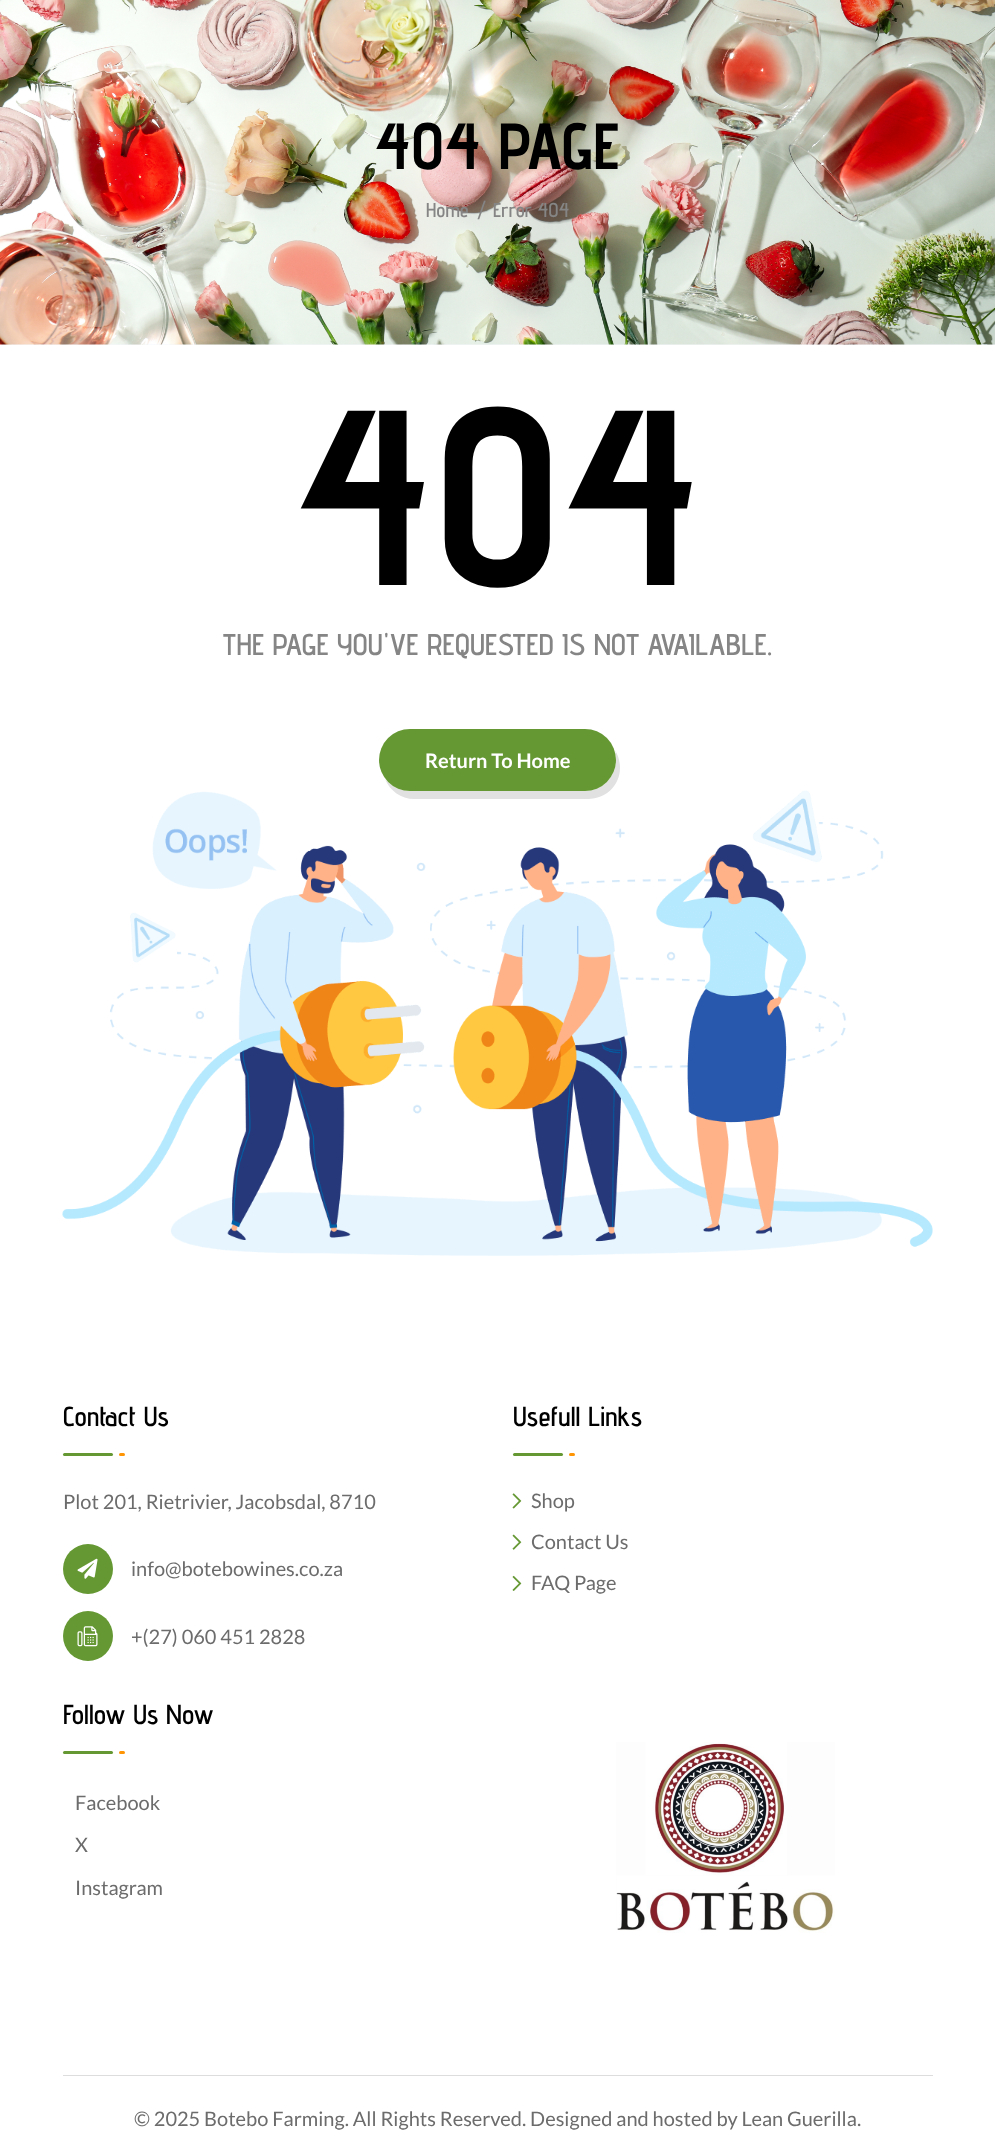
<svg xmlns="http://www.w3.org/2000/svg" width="995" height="2154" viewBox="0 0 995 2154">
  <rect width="100%" height="100%" fill="#fff"/>
  <path d="M0 344h995v1H0z" fill="#f5f6fb"/>
  <image x="0" y="0" width="995" height="345" href="img/1.png"/>
  <image x="62" y="790" width="871" height="466" href="img/2.png"/>
  <path d="M385 779C390 791 401 799 414 799H588C606 799 620 785 620 768C620 761 618 755 615 750C616 753 616 756 616 760C616 777 602 791 585 791H410C400 791 391 786 385 779Z" fill="#e1e1e1"/>
  <rect x="379" y="729" width="237" height="62" rx="31" fill="#659833"/>
  <rect x="63" y="1453" width="50" height="3" rx="1.5" fill="#659833"/>
  <rect x="119" y="1453" width="6" height="3" rx="1.5" fill="#fe9505"/>
  <circle cx="88" cy="1569" r="25" fill="#659833"/>
  <image x="77" y="1558" width="21" height="21" href="img/3.png"/>
  <circle cx="88" cy="1636" r="25" fill="#659833"/>
  <image x="77" y="1626" width="21" height="21" href="img/4.png"/>
  <rect x="513" y="1453" width="50" height="3" rx="1.5" fill="#659833"/>
  <rect x="569" y="1453" width="6" height="3" rx="1.5" fill="#fe9505"/>
  <image x="512" y="1493" width="10" height="16" href="img/5.png"/>
  <image x="512" y="1534" width="10" height="16" href="img/6.png"/>
  <image x="512" y="1575" width="10" height="16" href="img/7.png"/>
  <rect x="63" y="1751" width="50" height="3" rx="1.5" fill="#659833"/>
  <rect x="119" y="1751" width="6" height="3" rx="1.5" fill="#fe9505"/>
  <image x="616" y="1742" width="219" height="191" href="img/8.png"/>
  <path d="M63 2075h870v1H63z" fill="#ddd"/>
  <text x="375" y="169" font-family="Advent Pro" font-size="65" font-weight="bold" fill="#000">404 PAGE</text>
  <g font-family="Advent Pro" font-size="20" font-weight="600" fill="#858585">
    <text x="426" y="217">Home</text>
    <text x="477" y="217">/</text>
    <text x="493" y="217">Error 404</text>
  </g>
  <text x="296" y="585" font-family="Advent Pro" font-size="249" font-weight="bold" fill="#000">404</text>
  <text x="223" y="655" font-family="Advent Pro" font-size="30" font-weight="600" fill="#858585">THE PAGE YOU'VE REQUESTED IS NOT AVAILABLE.</text>
  <text x="425" y="768" font-family="Lato" font-size="20" font-weight="bold" fill="#fff">Return To Home</text>
  <text x="63" y="1426" font-family="Advent Pro" font-size="27.5" font-weight="600" fill="#000">Contact Us</text>
  <g font-family="Lato" font-size="20" fill="#6c6c6c">
    <text x="63" y="1509">Plot 201, Rietrivier, Jacobsdal, 8710</text>
    <text x="131" y="1576">info@botebowines.co.za</text>
    <text x="131" y="1644">+(27) 060 451 2828</text>
  </g>
  <text x="513" y="1426" font-family="Advent Pro" font-size="27.5" font-weight="600" fill="#000">Usefull Links</text>
  <g font-family="Lato" font-size="20" fill="#6c6c6c">
    <text x="531" y="1508">Shop</text>
    <text x="531" y="1549">Contact Us</text>
    <text x="531" y="1590">FAQ Page</text>
  </g>
  <text x="63" y="1724" font-family="Advent Pro" font-size="27.5" font-weight="600" fill="#000">Follow Us Now</text>
  <g font-family="Lato" font-size="20" fill="#6c6c6c">
    <text x="75" y="1810">Facebook</text>
    <text x="75" y="1852">X</text>
    <text x="75" y="1895">Instagram</text>
    <text x="134" y="2126">© 2025 Botebo Farming. All Rights Reserved. Designed and hosted by Lean Guerilla.</text>
  </g>
</svg>
